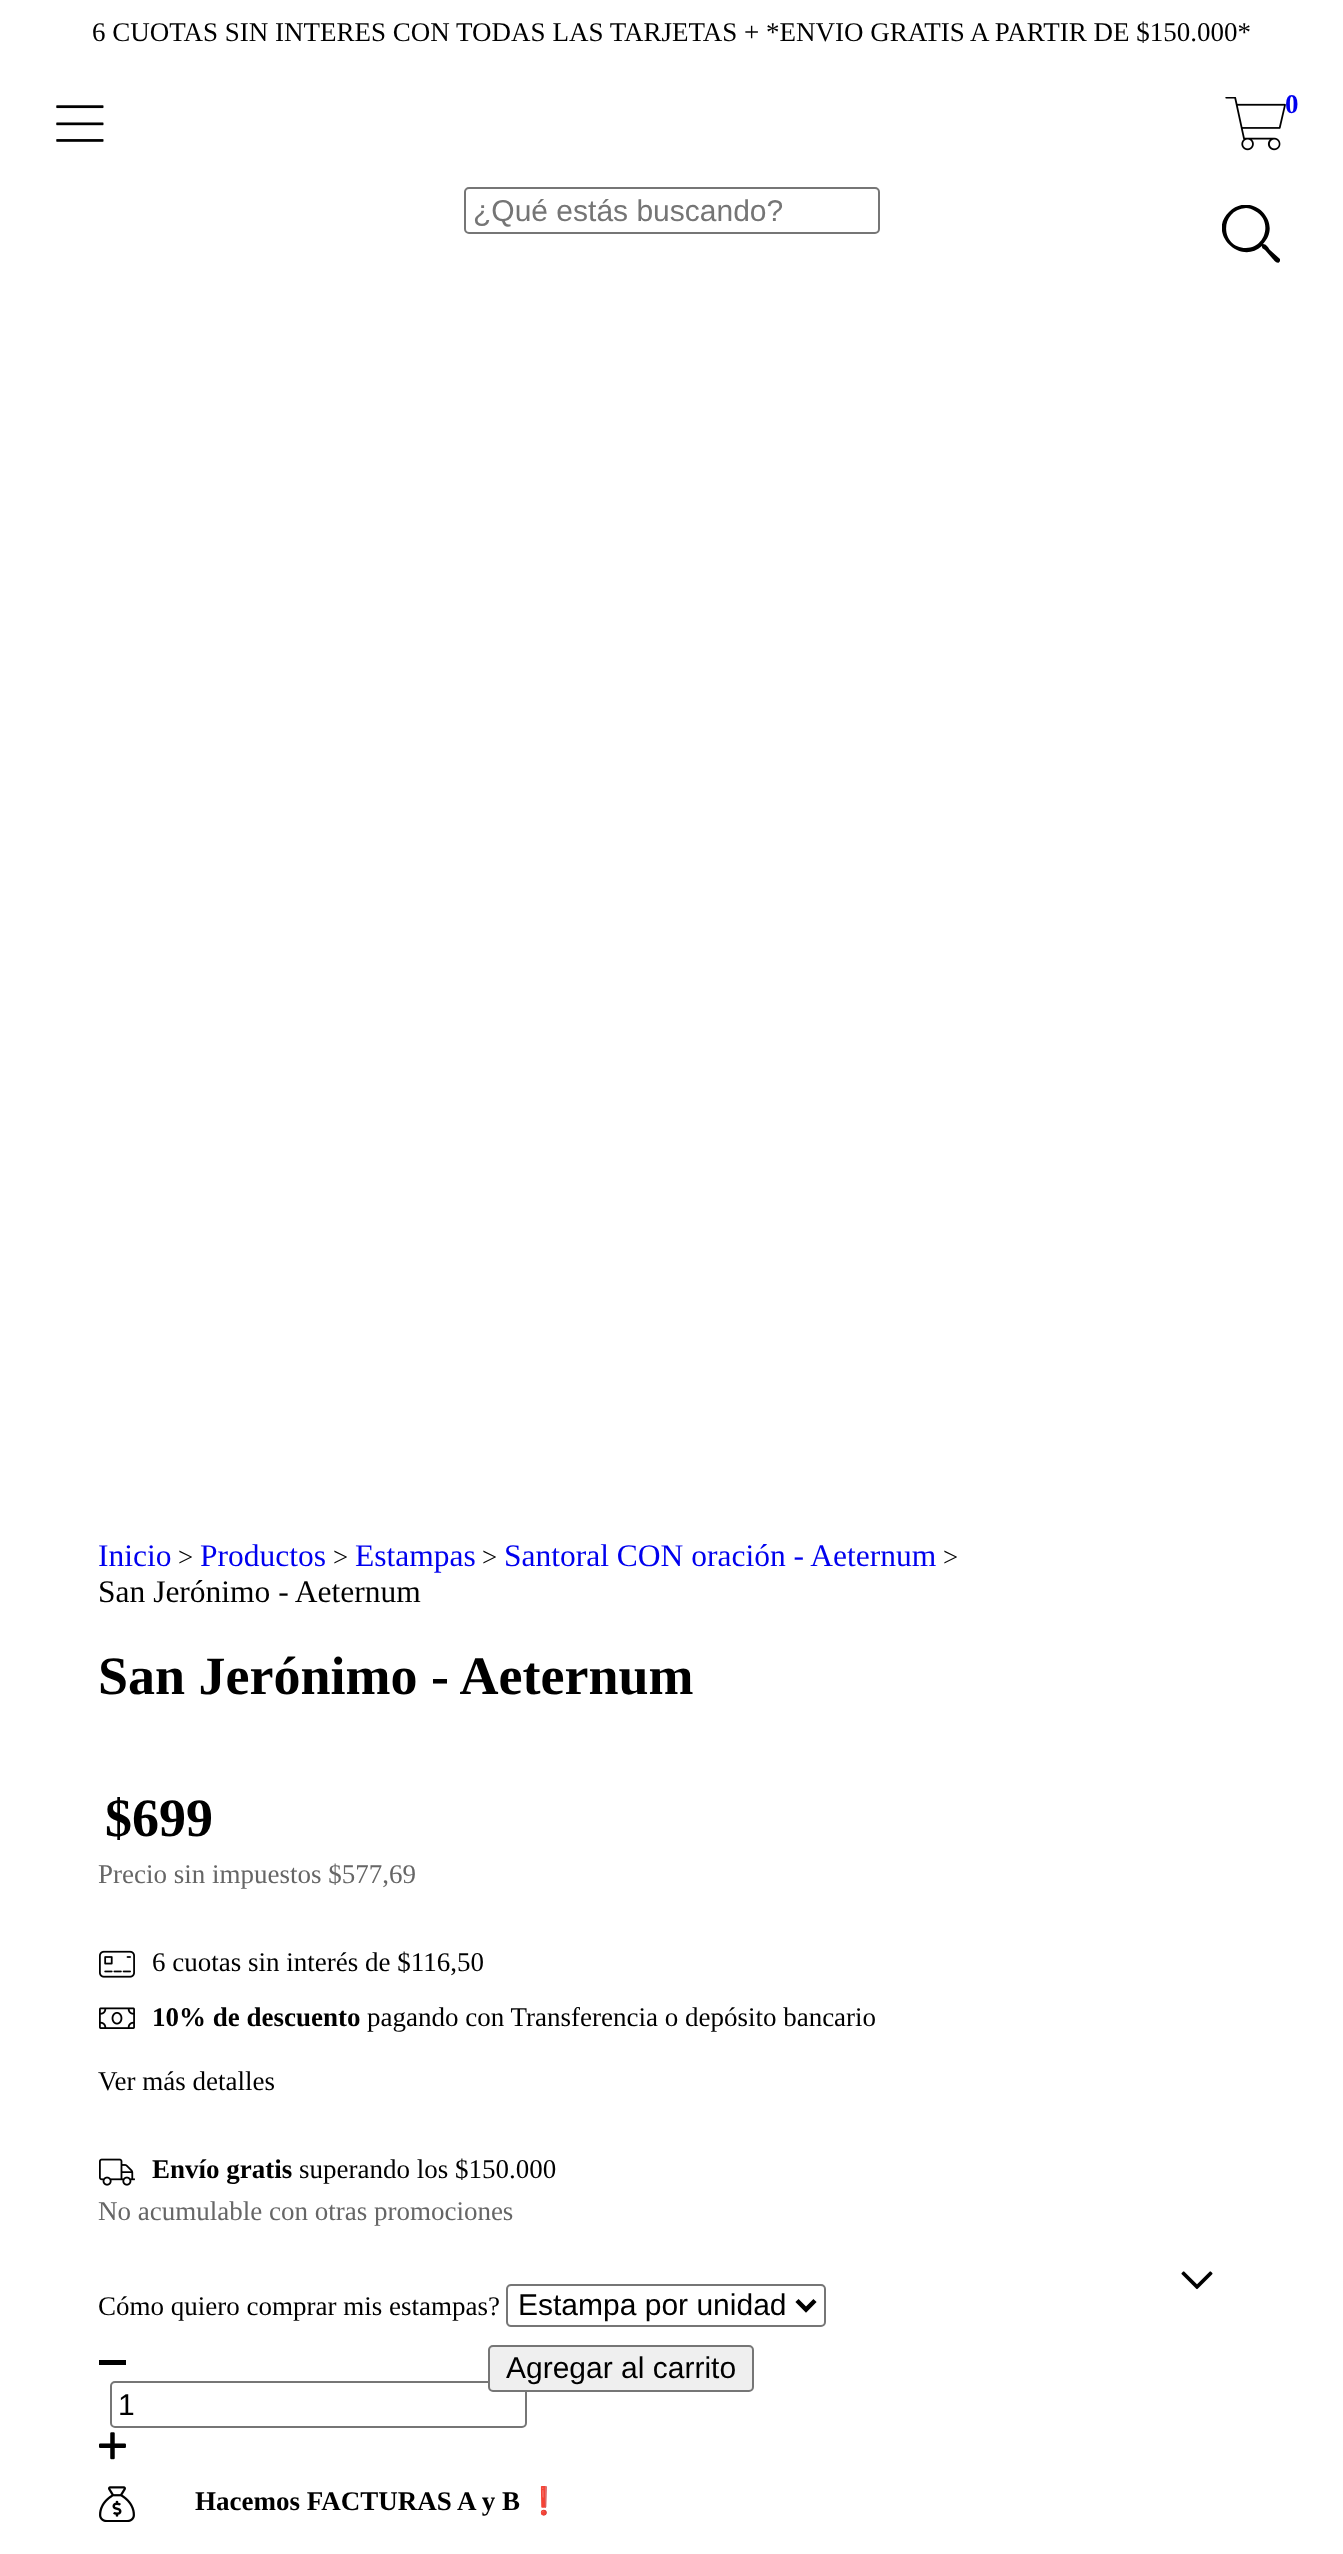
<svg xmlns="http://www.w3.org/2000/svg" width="1343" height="2554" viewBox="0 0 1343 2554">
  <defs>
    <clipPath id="clip1"><path d="M1222 205h60v60H1222z"/></clipPath>
  </defs>
  <rect width="100%" height="100%" fill="#fff"/>
  <image x="56" y="105" width="48" height="37" href="img/1.png"/>
  <image x="1225" y="97" width="61" height="54" href="img/2.png"/>
  <rect x="465" y="188" width="414" height="45" rx="4" fill="none" stroke="#767676" stroke-width="2"/>
  <g clip-path="url(#clip1)">
    <path d="M1280 259L1270 250C1268 247 1266 244 1263 244C1284 222 1251 190 1229 212C1207 233 1240 266 1262 246C1262 248 1262 248 1265 250L1272 258C1273 259 1278 266 1280 261ZM1246 248C1220 248 1219 210 1246 208C1249 208 1252 209 1255 211C1273 220 1266 248 1246 248Z" fill="#000"/>
  </g>
  <image x="99" y="1950" width="36" height="28" href="img/3.png"/>
  <image x="99" y="2007" width="36" height="22" href="img/4.png"/>
  <image x="99" y="2158" width="36" height="28" href="img/5.png"/>
  <image x="1181" y="2271" width="32" height="19" href="img/6.png"/>
  <rect x="507" y="2285" width="318" height="41" rx="4" fill="none" stroke="#767676" stroke-width="2"/>
  <path d="M797 2300.5L806 2309.5L815 2300.5" fill="none" stroke="#000" stroke-width="4.5"/>
  <rect x="111" y="2382" width="415" height="45" rx="4" fill="none" stroke="#767676" stroke-width="2"/>
  <rect x="489" y="2346" width="264" height="45" rx="4" fill="#efefef" stroke="#767676" stroke-width="2"/>
  <path d="M99 2360h27v5H99z" fill="#000"/>
  <image x="99" y="2432" width="27" height="28" href="img/7.png"/>
  <image x="99" y="2486" width="36" height="36" href="img/8.png"/>
  <text x="92" y="41" font-family="Liberation Serif" font-size="27" fill="#000">6 CUOTAS SIN INTERES CON TODAS LAS TARJETAS + *ENVIO GRATIS A PARTIR DE $150.000*</text>
  <text x="1285" y="113" font-family="Liberation Serif" font-size="27" font-weight="bold" fill="#00e">0</text>
  <text x="473" y="221" font-family="Liberation Sans" font-size="30" fill="#757575">¿Qué estás buscando?</text>
  <text x="98" y="1566" font-family="Liberation Serif" font-size="31.5" fill="#00e">Inicio</text>
  <text x="178" y="1566" font-family="Liberation Serif" font-size="27" fill="#000">&gt;</text>
  <text x="200" y="1566" font-family="Liberation Serif" font-size="31.5" fill="#00e">Productos</text>
  <text x="333" y="1566" font-family="Liberation Serif" font-size="27" fill="#000">&gt;</text>
  <text x="355" y="1566" font-family="Liberation Serif" font-size="31.5" fill="#00e">Estampas</text>
  <text x="482" y="1566" font-family="Liberation Serif" font-size="27" fill="#000">&gt;</text>
  <text x="504" y="1566" font-family="Liberation Serif" font-size="31.5" fill="#00e">Santoral CON oración - Aeternum</text>
  <text x="943" y="1566" font-family="Liberation Serif" font-size="27" fill="#000">&gt;</text>
  <text x="98" y="1602" font-family="Liberation Serif" font-size="31.5" fill="#000">San Jerónimo - Aeternum</text>
  <g font-family="Liberation Serif" font-size="54" font-weight="bold" fill="#000">
    <text x="98" y="1694">San Jerónimo - Aeternum</text>
    <text x="105" y="1836">$699</text>
  </g>
  <text x="98" y="1883" font-family="Liberation Serif" font-size="27" fill="#666">Precio sin impuestos $577,69</text>
  <text x="152" y="1971" font-family="Liberation Serif" font-size="27" fill="#000">6 cuotas sin interés de $116,50</text>
  <text x="152" y="2026" font-family="Liberation Serif" font-size="27" font-weight="bold" fill="#000">10% de descuento</text>
  <g font-family="Liberation Serif" font-size="27" fill="#000">
    <text x="367" y="2026">pagando con Transferencia o depósito bancario</text>
    <text x="98" y="2090">Ver más detalles</text>
  </g>
  <text x="152" y="2178" font-family="Liberation Serif" font-size="27" font-weight="bold" fill="#000">Envío gratis</text>
  <text x="299" y="2178" font-family="Liberation Serif" font-size="27" fill="#000">superando los $150.000</text>
  <text x="98" y="2220" font-family="Liberation Serif" font-size="27" fill="#666">No acumulable con otras promociones</text>
  <text x="98" y="2315" font-family="Liberation Serif" font-size="27" fill="#000">Cómo quiero comprar mis estampas?</text>
  <g font-family="Liberation Sans" font-size="30" fill="#000">
    <text x="518" y="2315">Estampa por unidad</text>
    <text x="506" y="2378">Agregar al carrito</text>
    <text x="118" y="2415">1</text>
  </g>
  <text x="195" y="2510" font-family="Liberation Serif" font-size="27" font-weight="bold" fill="#000">Hacemos FACTURAS A y B</text>
  <text x="527" y="2510" font-family="Noto Color Emoji" font-size="27" font-weight="bold" fill="#000">❗️</text>
</svg>
